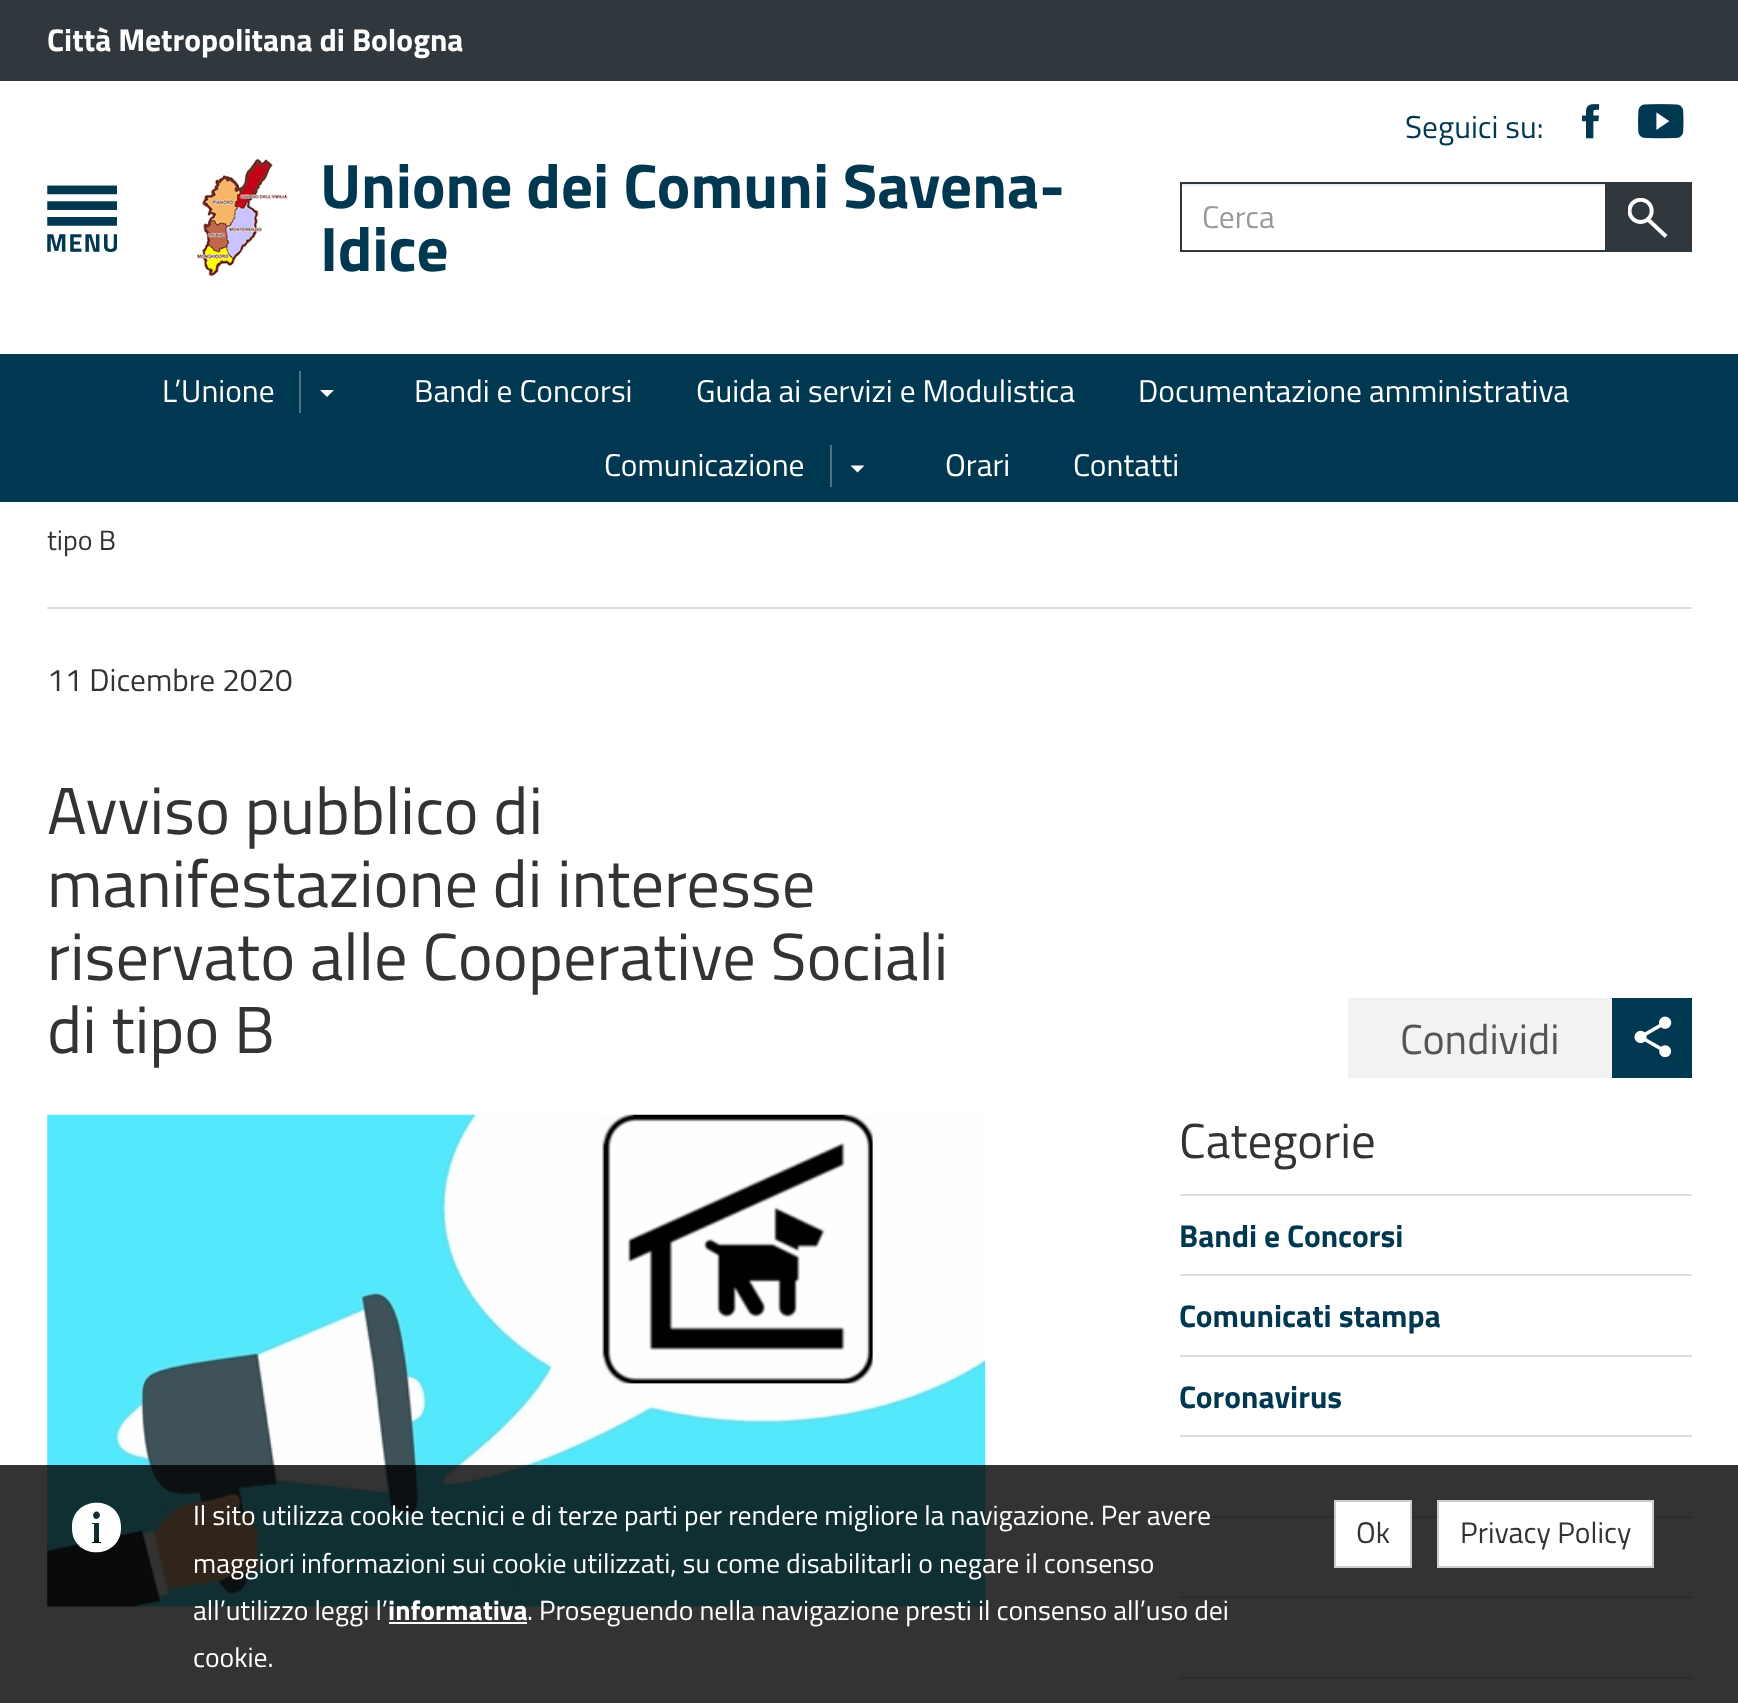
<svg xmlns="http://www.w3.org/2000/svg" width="1738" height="1703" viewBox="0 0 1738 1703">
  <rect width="100%" height="100%" fill="#fff"/>
  <path d="M0 0h1738v81H0z" fill="#30373d"/>
  <image x="1582" y="104" width="18" height="35" href="img/1.png"/>
  <image x="1638" y="104" width="46" height="35" href="img/2.png"/>
  <image x="47" y="185" width="70" height="67" href="img/3.png"/>
  <image x="197" y="158" width="91" height="119" href="img/4.png"/>
  <path d="M1181 184h424v2H1181z" fill="#ececec"/>
  <path d="M1181 183h425v68H1181z" fill="none" stroke="#30373d" stroke-width="2"/>
  <path d="M1607 182h85v70H1607z" fill="#30373d"/>
  <image x="1628" y="198" width="40" height="40" href="img/5.png"/>
  <path d="M0 354h1738v148H0z" fill="#003751"/>
  <path d="M299 371h2v42H299z" fill="#4d7385"/>
  <path d="M320 390H334L327 397Z" fill="#fff"/>
  <path d="M830 445h2v42H830z" fill="#4d7385"/>
  <path d="M850.5 465.5H864.5L857.5 472.5Z" fill="#fff"/>
  <path d="M47 607h1645v2H47z" fill="#ddd"/>
  <image x="47" y="1114" width="939" height="493" href="img/6.png"/>
  <path d="M1348 998h264v80H1348z" fill="#f2f2f2"/>
  <path d="M1612 998h80v80H1612z" fill="#003751"/>
  <image x="1634" y="1016" width="38" height="42" href="img/7.png"/>
  <path d="M1180 1194h512v2H1180z" fill="#ddd"/>
  <path d="M1180 1274h512v2H1180z" fill="#ddd"/>
  <path d="M1180 1355h512v2H1180z" fill="#ddd"/>
  <path d="M1180 1435h512v2H1180z" fill="#ddd"/>
  <path d="M1180 1516h512v2H1180z" fill="#ddd"/>
  <path d="M1180 1596h512v2H1180z" fill="#ddd"/>
  <path d="M1180 1677h512v2H1180z" fill="#ddd"/>
  <path d="M0 1465h1738v238H0z" fill="#000000cc"/>
  <path d="M121 1527C122 1560 72 1561 72 1528C71 1495 121 1494 121 1527ZM99 1513C96 1509 91 1514 94 1518C97 1521 102 1516 99 1513ZM101 1543V1542H99V1523H92V1524H94V1542H92V1543Z" fill="#fff"/>
  <path d="M389 1622h138v2H389z" fill="#fff"/>
  <path d="M1335 1501h76v66H1335z" fill="#fff" stroke="#ccc" stroke-width="2"/>
  <path d="M1438 1501h215v66H1438z" fill="#fff" stroke="#ccc" stroke-width="2"/>
  <text x="47" y="51" font-family="Titillium Web" font-size="31.5" font-weight="bold" fill="#fff">Città Metropolitana di Bologna</text>
  <text x="1405" y="138" font-family="Titillium Web" font-size="31.5" fill="#003751">Seguici su:</text>
  <g font-family="Titillium Web" font-size="63" font-weight="bold" fill="#003751">
    <text x="320" y="208">Unione dei Comuni Savena-</text>
    <text x="320" y="271">Idice</text>
  </g>
  <text x="1202" y="228" font-family="Titillium Web" font-size="31.5" fill="#999">Cerca</text>
  <g font-family="Titillium Web" font-size="31.5" fill="#fff">
    <text x="162" y="402">L’Unione</text>
    <text x="414" y="402">Bandi e Concorsi</text>
    <text x="696" y="402">Guida ai servizi e Modulistica</text>
    <text x="1138" y="402">Documentazione amministrativa</text>
    <text x="604" y="476">Comunicazione</text>
    <text x="945" y="476">Orari</text>
    <text x="1073" y="476">Contatti</text>
  </g>
  <text x="47" y="550" font-family="Titillium Web" font-size="28" fill="#333">tipo B</text>
  <text x="47" y="691" font-family="Titillium Web" font-size="31.5" fill="#333">11 Dicembre 2020</text>
  <g font-family="Titillium Web" font-size="66.5" fill="#333">
    <text x="47" y="834">Avviso pubblico di</text>
    <text x="47" y="907">manifestazione di interesse</text>
    <text x="47" y="980">riservato alle Cooperative Sociali</text>
    <text x="47" y="1053">di tipo B</text>
  </g>
  <text x="1400" y="1054" font-family="Titillium Web" font-size="42" fill="#555">Condividi</text>
  <text x="1179" y="1158" font-family="Titillium Web" font-size="49" fill="#333">Categorie</text>
  <g font-family="Titillium Web" font-size="31.5" font-weight="bold" fill="#003751">
    <text x="1179" y="1247">Bandi e Concorsi</text>
    <text x="1179" y="1327">Comunicati stampa</text>
    <text x="1179" y="1408">Coronavirus</text>
  </g>
  <g font-family="Titillium Web" font-size="27.7" fill="#fff">
    <text x="193" y="1525">Il sito utilizza cookie tecnici e di terze parti per rendere migliore la navigazione. Per avere</text>
    <text x="193" y="1573">maggiori informazioni sui cookie utilizzati, su come disabilitarli o negare il consenso</text>
    <text x="193" y="1620">all’utilizzo leggi l’</text>
  </g>
  <text x="388" y="1620" font-family="Titillium Web" font-size="27.7" font-weight="bold" fill="#fff">informativa</text>
  <g font-family="Titillium Web" font-size="27.7" fill="#fff">
    <text x="527" y="1620">. Proseguendo nella navigazione presti il consenso all’uso dei</text>
    <text x="193" y="1667">cookie.</text>
  </g>
  <g font-family="Titillium Web" font-size="29.75" fill="#333">
    <text x="1356" y="1543">Ok</text>
    <text x="1460" y="1543">Privacy Policy</text>
  </g>
</svg>
